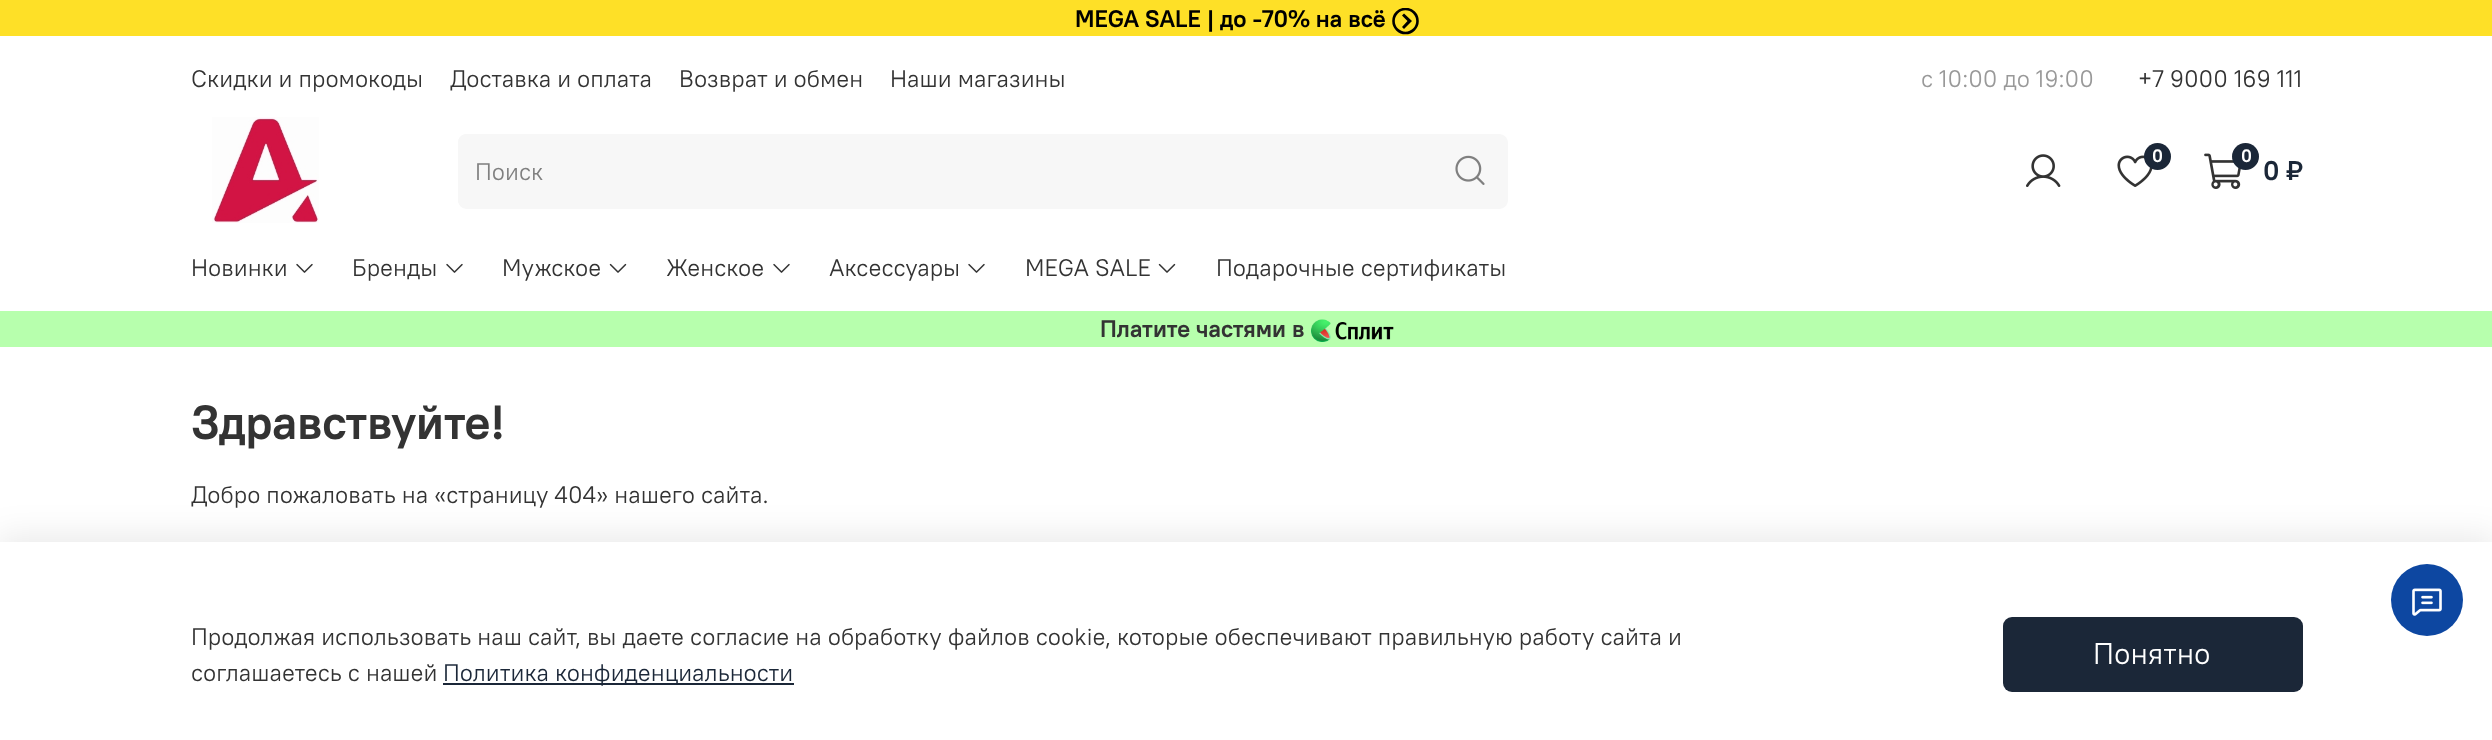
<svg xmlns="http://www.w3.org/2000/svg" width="2492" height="740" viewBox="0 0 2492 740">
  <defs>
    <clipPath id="clip1"><path d="M1392 8h27v27H1392z"/></clipPath>
  </defs>
  <rect width="100%" height="100%" fill="#fff"/>
  <path d="M0 0h2492v36H0z" fill="#fee027"/>
  <g clip-path="url(#clip1)">
    <circle cx="1405.5" cy="21" r="12" fill="none" stroke="#000" stroke-width="2.6"/>
  </g>
  <path d="M1404 13.5L1402 15.5L1407.5 21L1402 27L1404 29L1412 21Z" fill="#000"/>
  <image x="212" y="117" width="107" height="106" href="img/1.png"/>
  <path d="M467 134H1433V209H467C462 209 458 205 458 200V143C458 138 462 134 467 134Z" fill="#f7f7f7"/>
  <path d="M466 134H1432V208H466C462 208 458 204 458 200V142C458 138 462 134 466 134ZM466 135H1432V207H466C462 207 459 204 459 200V142C459 138 462 135 466 135Z" fill="#f7f7f7" fill-rule="evenodd"/>
  <path d="M1433 134H1499C1504 134 1508 138 1508 143V200C1508 205 1504 209 1499 209H1433Z" fill="#f7f7f7"/>
  <image x="1455" y="155" width="30" height="30" href="img/2.png"/>
  <image x="2026" y="154" width="35" height="33" href="img/3.png"/>
  <image x="2117" y="155" width="36" height="32" href="img/4.png"/>
  <circle cx="2157.5" cy="156.5" r="13.5" fill="#1b2738"/>
  <image x="2204" y="153" width="37" height="36" href="img/5.png"/>
  <circle cx="2245.5" cy="156.5" r="13.5" fill="#1b2738"/>
  <image x="296" y="263" width="17" height="10" href="img/6.png"/>
  <image x="446" y="263" width="17" height="10" href="img/6.png"/>
  <image x="609" y="263" width="18" height="10" href="img/7.png"/>
  <image x="773" y="263" width="17" height="10" href="img/6.png"/>
  <image x="968" y="263" width="17" height="10" href="img/6.png"/>
  <image x="1158" y="263" width="18" height="10" href="img/7.png"/>
  <path d="M0 311h2492v36H0z" fill="#b7ffad"/>
  <image x="1311" y="319" width="83" height="23" href="img/8.png"/>
  <path d="M-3 537h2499v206H-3z" fill="#00000017" filter="blur(17px)"/>
  <path d="M0 542h2492v198H0z" fill="#fff"/>
  <circle cx="2427" cy="600" r="36" fill="#0d47a1"/>
  <image x="2412" y="588" width="30" height="28" href="img/9.png"/>
  <path d="M443 683h351v2H443z" fill="#1b2738"/>
  <rect x="2003" y="617" width="300" height="75" rx="9" fill="#1b2738"/>
  <text x="1075" y="27" font-family="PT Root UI" font-size="24" font-weight="bold" fill="#000">MEGA SALE | до -70% на всё</text>
  <g font-family="PT Root UI" font-size="24" fill="#333">
    <text x="191" y="87">Скидки и промокоды</text>
    <text x="450" y="87">Доставка и оплата</text>
    <text x="679" y="87">Возврат и обмен</text>
    <text x="890" y="87">Наши магазины</text>
  </g>
  <text x="1921" y="87" font-family="PT Root UI" font-size="24" fill="#999">с 10:00 до 19:00</text>
  <text x="2138" y="87" font-family="PT Root UI" font-size="24" fill="#333">+7 9000 169 111</text>
  <text x="475" y="180" font-family="PT Root UI" font-size="24" fill="#808080">Поиск</text>
  <g font-family="PT Root UI" font-size="18" font-weight="bold" fill="#fff">
    <text x="2152" y="162">0</text>
    <text x="2241" y="162">0</text>
  </g>
  <text x="2263" y="180" font-family="PT Root UI" font-size="27" font-weight="bold" fill="#1b2738">0 ₽</text>
  <g font-family="PT Root UI" font-size="24" fill="#333">
    <text x="191" y="276">Новинки</text>
    <text x="352" y="276">Бренды</text>
    <text x="502" y="276">Мужское</text>
    <text x="666" y="276">Женское</text>
    <text x="829" y="276">Аксессуары</text>
    <text x="1025" y="276">MEGA SALE</text>
    <text x="1216" y="276">Подарочные сертификаты</text>
  </g>
  <text x="1100" y="337" font-family="PT Root UI" font-size="24" font-weight="bold" fill="#333">Платите частями в</text>
  <text x="191" y="439" font-family="PT Root UI" font-size="48" font-weight="bold" fill="#333">Здравствуйте!</text>
  <g font-family="PT Root UI" font-size="24" fill="#333">
    <text x="191" y="503">Добро пожаловать на «страницу 404» нашего сайта.</text>
    <text x="191" y="645">Продолжая использовать наш сайт, вы даете согласие на обработку файлов cookie, которые обеспечивают правильную работу сайта и</text>
    <text x="191" y="681">соглашаетесь с нашей</text>
  </g>
  <text x="443" y="681" font-family="PT Root UI" font-size="24" fill="#1b2738">Политика конфиденциальности</text>
  <text x="2093" y="664" font-family="PT Root UI" font-size="30" fill="#fff">Понятно</text>
</svg>
